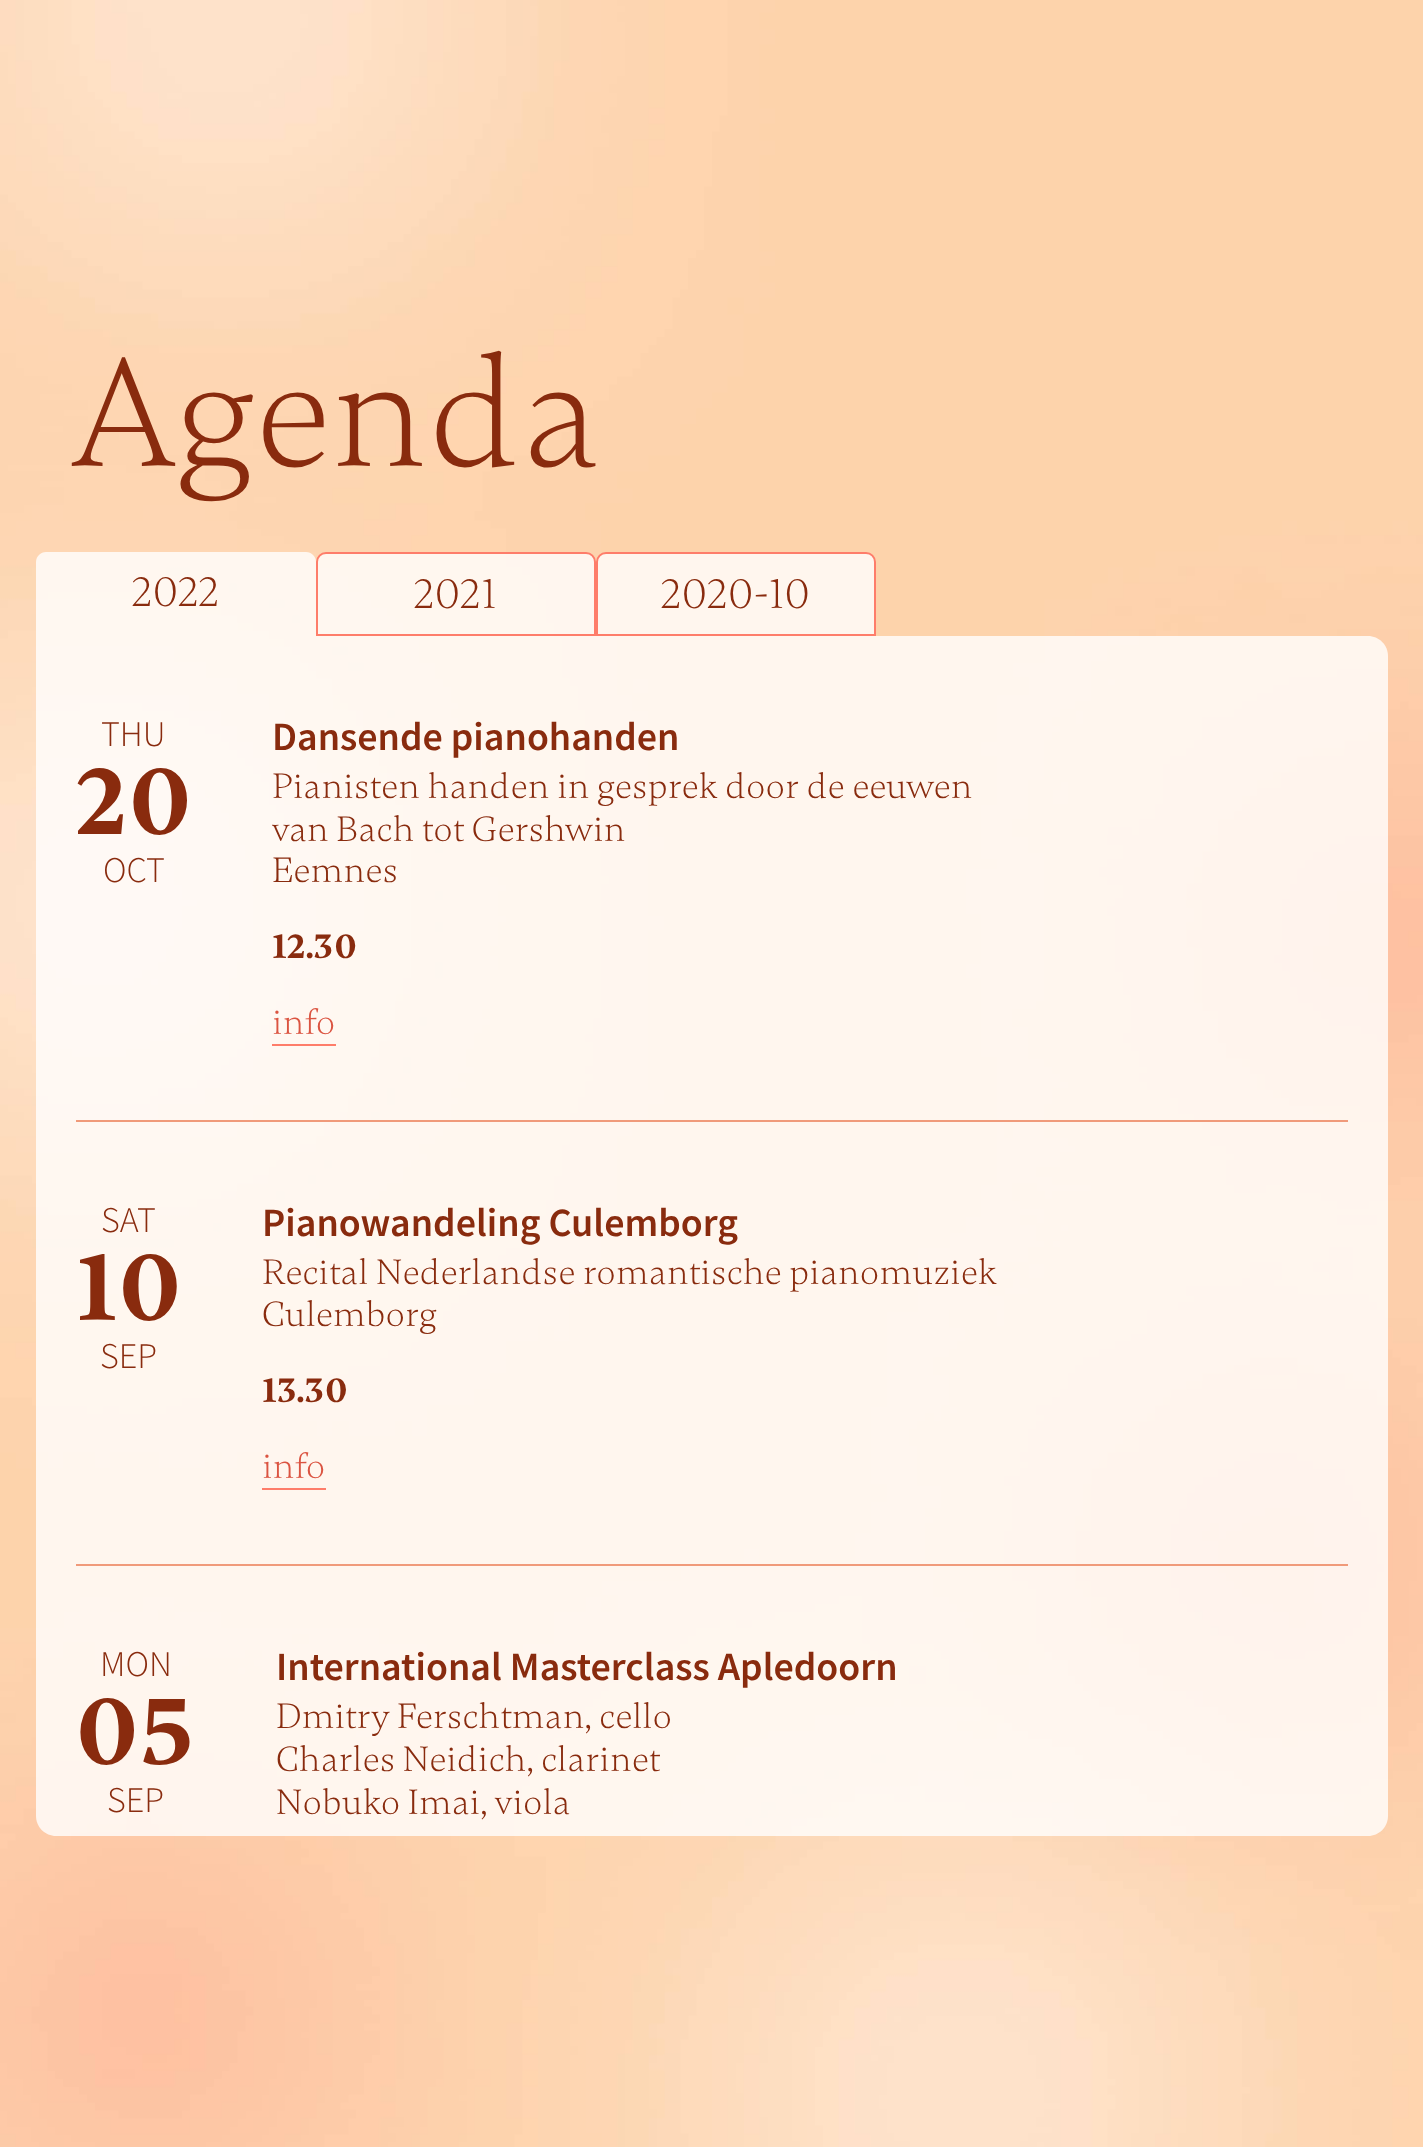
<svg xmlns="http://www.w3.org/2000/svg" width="1423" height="2147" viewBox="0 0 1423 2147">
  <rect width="100%" height="100%" fill="#fff"/>
  <image x="0" y="0" width="1423" height="2147" href="img/1.png"/>
  <path d="M46 552H306C311.5 552 316 556.5 316 562V636H36V562C36 556.5 40.5 552 46 552Z" fill="#ffffffcc"/>
  <path d="M326 553H586C591 553 595 557 595 562V635H317V562C317 557 321 553 326 553Z" fill="#ffffffcc" stroke="#fe7d6a" stroke-width="2"/>
  <path d="M606 553H866C871 553 875 557 875 562V635H597V562C597 557 601 553 606 553Z" fill="#fff6ee" stroke="#fe7d6a" stroke-width="2"/>
  <path d="M36 636H1368C1379 636 1388 645 1388 656V1816C1388 1827 1379 1836 1368 1836H56C45 1836 36 1827 36 1816Z" fill="#ffffffcc"/>
  <path d="M272 1044h64v2H272z" fill="#fe7d6a"/>
  <path d="M76 1120h1272v2H76z" fill="#f09a7a"/>
  <path d="M262 1488h64v2H262z" fill="#fe7d6a"/>
  <path d="M76 1564h1272v2H76z" fill="#f09a7a"/>
  <text x="71" y="466" font-family="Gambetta" font-size="160" font-weight="300" fill="#892b0e">Agenda</text>
  <g font-family="Gambetta" font-size="44" font-weight="300" fill="#892b0e">
    <text x="132" y="606">2022</text>
    <text x="414" y="608">2021</text>
    <text x="661" y="608">2020-10</text>
  </g>
  <text x="101" y="746" font-family="Source Sans Pro" font-size="36" font-weight="300" fill="#892b0e">THU</text>
  <text x="76" y="834" font-family="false" font-size="100" font-weight="bold" fill="#892b0e">20</text>
  <text x="103" y="882" font-family="Source Sans Pro" font-size="36" font-weight="300" fill="#892b0e">OCT</text>
  <text x="272" y="750" font-family="Source Sans Pro" font-size="40" font-weight="600" fill="#892b0e">Dansende pianohanden</text>
  <g font-family="Gambetta" font-size="36" font-weight="300" fill="#892b0e">
    <text x="272" y="798">Pianisten handen in gesprek door de eeuwen</text>
    <text x="272" y="841">van Bach tot Gershwin</text>
    <text x="272" y="882">Eemnes</text>
  </g>
  <text x="272" y="958" font-family="false" font-size="36" font-weight="bold" fill="#892b0e">12.30</text>
  <text x="272" y="1034" font-family="Gambetta" font-size="36" font-weight="300" fill="#db5441">info</text>
  <text x="101" y="1232" font-family="Source Sans Pro" font-size="36" font-weight="300" fill="#892b0e">SAT</text>
  <text x="76" y="1320" font-family="false" font-size="100" font-weight="bold" fill="#892b0e">10</text>
  <text x="100" y="1368" font-family="Source Sans Pro" font-size="36" font-weight="300" fill="#892b0e">SEP</text>
  <text x="262" y="1236" font-family="Source Sans Pro" font-size="40" font-weight="600" fill="#892b0e">Pianowandeling Culemborg</text>
  <g font-family="Gambetta" font-size="36" font-weight="300" fill="#892b0e">
    <text x="262" y="1284">Recital Nederlandse romantische pianomuziek</text>
    <text x="262" y="1326">Culemborg</text>
  </g>
  <text x="262" y="1402" font-family="false" font-size="36" font-weight="bold" fill="#892b0e">13.30</text>
  <text x="262" y="1478" font-family="Gambetta" font-size="36" font-weight="300" fill="#db5441">info</text>
  <text x="100" y="1676" font-family="Source Sans Pro" font-size="36" font-weight="300" fill="#892b0e">MON</text>
  <text x="75" y="1764" font-family="false" font-size="100" font-weight="bold" fill="#892b0e">05</text>
  <text x="107" y="1812" font-family="Source Sans Pro" font-size="36" font-weight="300" fill="#892b0e">SEP</text>
  <text x="276" y="1680" font-family="Source Sans Pro" font-size="40" font-weight="600" fill="#892b0e">International Masterclass Apledoorn</text>
  <g font-family="Gambetta" font-size="36" font-weight="300" fill="#892b0e">
    <text x="276" y="1728">Dmitry Ferschtman, cello</text>
    <text x="276" y="1771">Charles Neidich, clarinet</text>
    <text x="276" y="1814">Nobuko Imai, viola</text>
  </g>
</svg>
